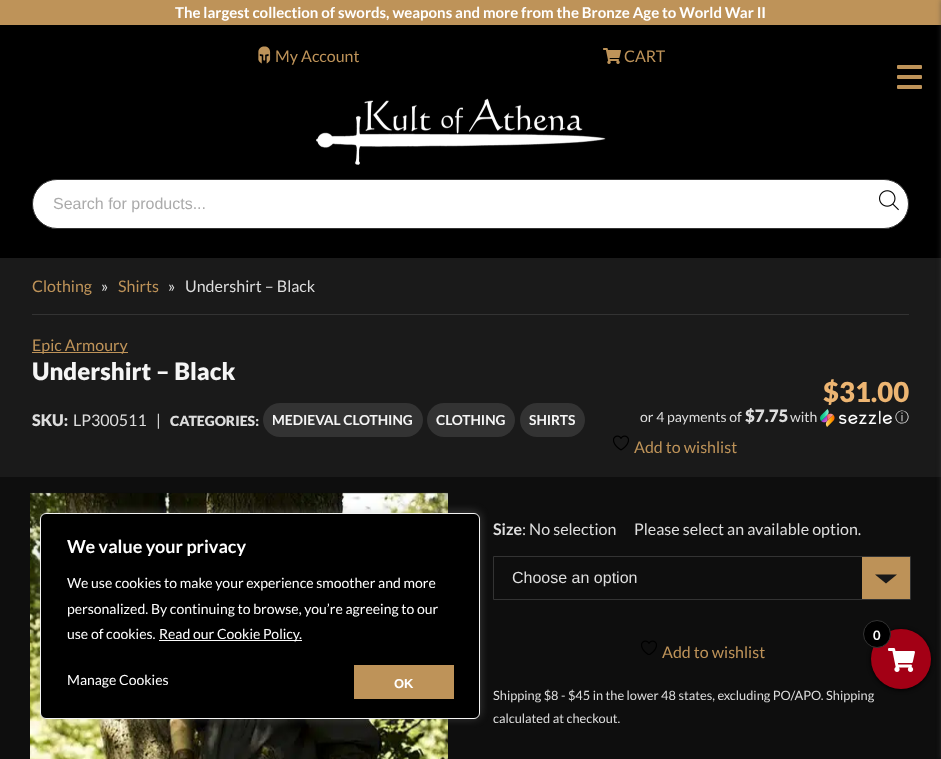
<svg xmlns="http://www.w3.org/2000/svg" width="941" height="759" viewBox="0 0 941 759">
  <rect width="100%" height="100%" fill="#1a1a1a"/>
  <path d="M0 0h941v25H0z" fill="#be9359"/>
  <path d="M0 25h941v233H0z" fill="#000"/>
  <image x="258" y="46" width="13" height="18" href="img/1.png"/>
  <image x="603" y="48" width="18" height="16" href="img/2.png"/>
  <rect x="897" y="65" width="25" height="4" rx="1" fill="#be9359"/>
  <rect x="897" y="75" width="25" height="4" rx="1" fill="#be9359"/>
  <rect x="897" y="85" width="25" height="4" rx="1" fill="#be9359"/>
  <image x="316" y="98" width="290" height="67" href="img/3.png"/>
  <rect x="32.5" y="179.5" width="876" height="49" rx="24.5" fill="#fff" stroke="#333"/>
  <image x="879" y="190" width="20" height="21" href="img/4.png"/>
  <path d="M0 477h941v282H0z" fill="#0e0e0e"/>
  <path d="M32 314h877v1H32z" fill="#333"/>
  <path d="M32 352h96v1H32z" fill="#be9359"/>
  <rect x="263" y="403" width="160" height="34" rx="17" fill="#333"/>
  <rect x="427" y="403" width="88" height="34" rx="17" fill="#333"/>
  <rect x="520" y="403" width="65" height="34" rx="17" fill="#333"/>
  <image x="820" y="409" width="72" height="18" href="img/5.png"/>
  <image x="613" y="435" width="16" height="16" href="img/6.png"/>
  <image x="30" y="492" width="418" height="267" href="img/7.png"/>
  <path d="M862 557h48v42H862z" fill="#bd9258"/>
  <path d="M886 583.5L875 574.5H897Z" fill="#191919"/>
  <path d="M493.5 556.5h417v43H493.5z" fill="none" stroke="#333"/>
  <image x="641" y="640" width="16" height="15" href="img/8.png"/>
  <rect x="40" y="512" width="440" height="206" rx="6" fill="#acabab4d" filter="blur(5px)"/>
  <rect x="40.5" y="513.5" width="439" height="205" rx="5.5" fill="#000" stroke="#f4f4f4"/>
  <path d="M159 640h143v1H159z" fill="#fdfdfd"/>
  <path d="M354 665h100v34H354z" fill="#be9359"/>
  <path d="M941 0h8v759H941z" fill="#42414180" filter="blur(2.5px)"/>
  <rect x="871" y="630" width="60" height="60" rx="30" fill="#000" filter="blur(2px)"/>
  <circle cx="901" cy="659" r="30" fill="#a30015"/>
  <circle cx="877" cy="634" r="13.5" fill="#000" stroke="#333"/>
  <image x="888" y="648" width="27" height="24" href="img/9.png"/>
  <text x="175" y="18" font-family="Lato" font-size="15" font-weight="bold" fill="#fff">The largest collection of swords, weapons and more from the Bronze Age to World War II</text>
  <g font-family="Lato" font-size="16" fill="#be9359">
    <text x="275" y="62">My Account</text>
    <text x="624" y="62">CART</text>
  </g>
  <text x="53" y="209" font-family="Liberation Sans" font-size="16" fill="#ababab">Search for products...</text>
  <text x="32" y="292" font-family="Lato" font-size="16" fill="#be9359">Clothing</text>
  <text x="101" y="292" font-family="Lato" font-size="16" fill="#ddd">»</text>
  <text x="118" y="292" font-family="Lato" font-size="16" fill="#be9359">Shirts</text>
  <g font-family="Lato" font-size="16" fill="#ddd">
    <text x="168" y="292">»</text>
    <text x="185" y="292">Undershirt – Black</text>
  </g>
  <text x="32" y="351" font-family="Lato" font-size="16" fill="#be9359">Epic Armoury</text>
  <text x="32" y="380" font-family="Lato" font-size="24" font-weight="900" fill="#f5f5f5">Undershirt – Black</text>
  <text x="32" y="426" font-family="Lato" font-size="16" font-weight="900" fill="#ddd">SKU:</text>
  <g font-family="Lato" font-size="16" fill="#ddd">
    <text x="73" y="426">LP300511</text>
    <text x="156" y="426">|</text>
  </g>
  <text x="170" y="426" font-family="Lato" font-size="14" font-weight="900" fill="#ddd">CATEGORIES:</text>
  <g font-family="Lato" font-size="13.75" font-weight="bold" fill="#f5f5f5">
    <text x="272" y="425">MEDIEVAL CLOTHING</text>
    <text x="436" y="425">CLOTHING</text>
    <text x="529" y="425">SHIRTS</text>
  </g>
  <text x="823" y="402" font-family="Lato" font-size="27.5" font-weight="900" fill="#edb572">$31.00</text>
  <text x="640" y="422" font-family="Lato" font-size="14" fill="#ddd">or 4 payments of</text>
  <text x="745" y="422" font-family="Lato" font-size="17" font-weight="900" fill="#ddd">$7.75</text>
  <text x="790" y="422" font-family="Lato" font-size="14" fill="#ddd">with</text>
  <text x="895" y="422" font-family="WenQuanYi Zen Hei" font-size="14" font-weight="500" fill="#ddd">ⓘ</text>
  <text x="634" y="453" font-family="Lato" font-size="16" fill="#be9359">Add to wishlist</text>
  <text x="493" y="535" font-family="Lato" font-size="16" font-weight="bold" fill="#ddd">Size</text>
  <g font-family="Lato" font-size="16" fill="#ddd">
    <text x="522" y="535">: No selection</text>
    <text x="634" y="535">Please select an available option.</text>
  </g>
  <text x="512" y="583" font-family="Liberation Sans" font-size="16" fill="#ddd">Choose an option</text>
  <text x="662" y="658" font-family="Lato" font-size="16" fill="#be9359">Add to wishlist</text>
  <g font-family="Lato" font-size="12.8" fill="#ddd">
    <text x="493" y="700">Shipping $8 - $45 in the lower 48 states, excluding PO/APO. Shipping</text>
    <text x="493" y="723">calculated at checkout.</text>
  </g>
  <text x="67" y="553" font-family="Lato" font-size="18" font-weight="bold" fill="#fff">We value your privacy</text>
  <g font-family="Lato" font-size="14" fill="#fff">
    <text x="67" y="588">We use cookies to make your experience smoother and more</text>
    <text x="67" y="614">personalized. By continuing to browse, you’re agreeing to our</text>
    <text x="67" y="639">use of cookies.</text>
    <text x="159" y="639">Read our Cookie Policy.</text>
    <text x="67" y="685">Manage Cookies</text>
  </g>
  <text x="394" y="688" font-family="Liberation Sans" font-size="13" font-weight="bold" fill="#fff">OK</text>
  <text x="873" y="640" font-family="Lato" font-size="13" font-weight="bold" fill="#fff">0</text>
</svg>
